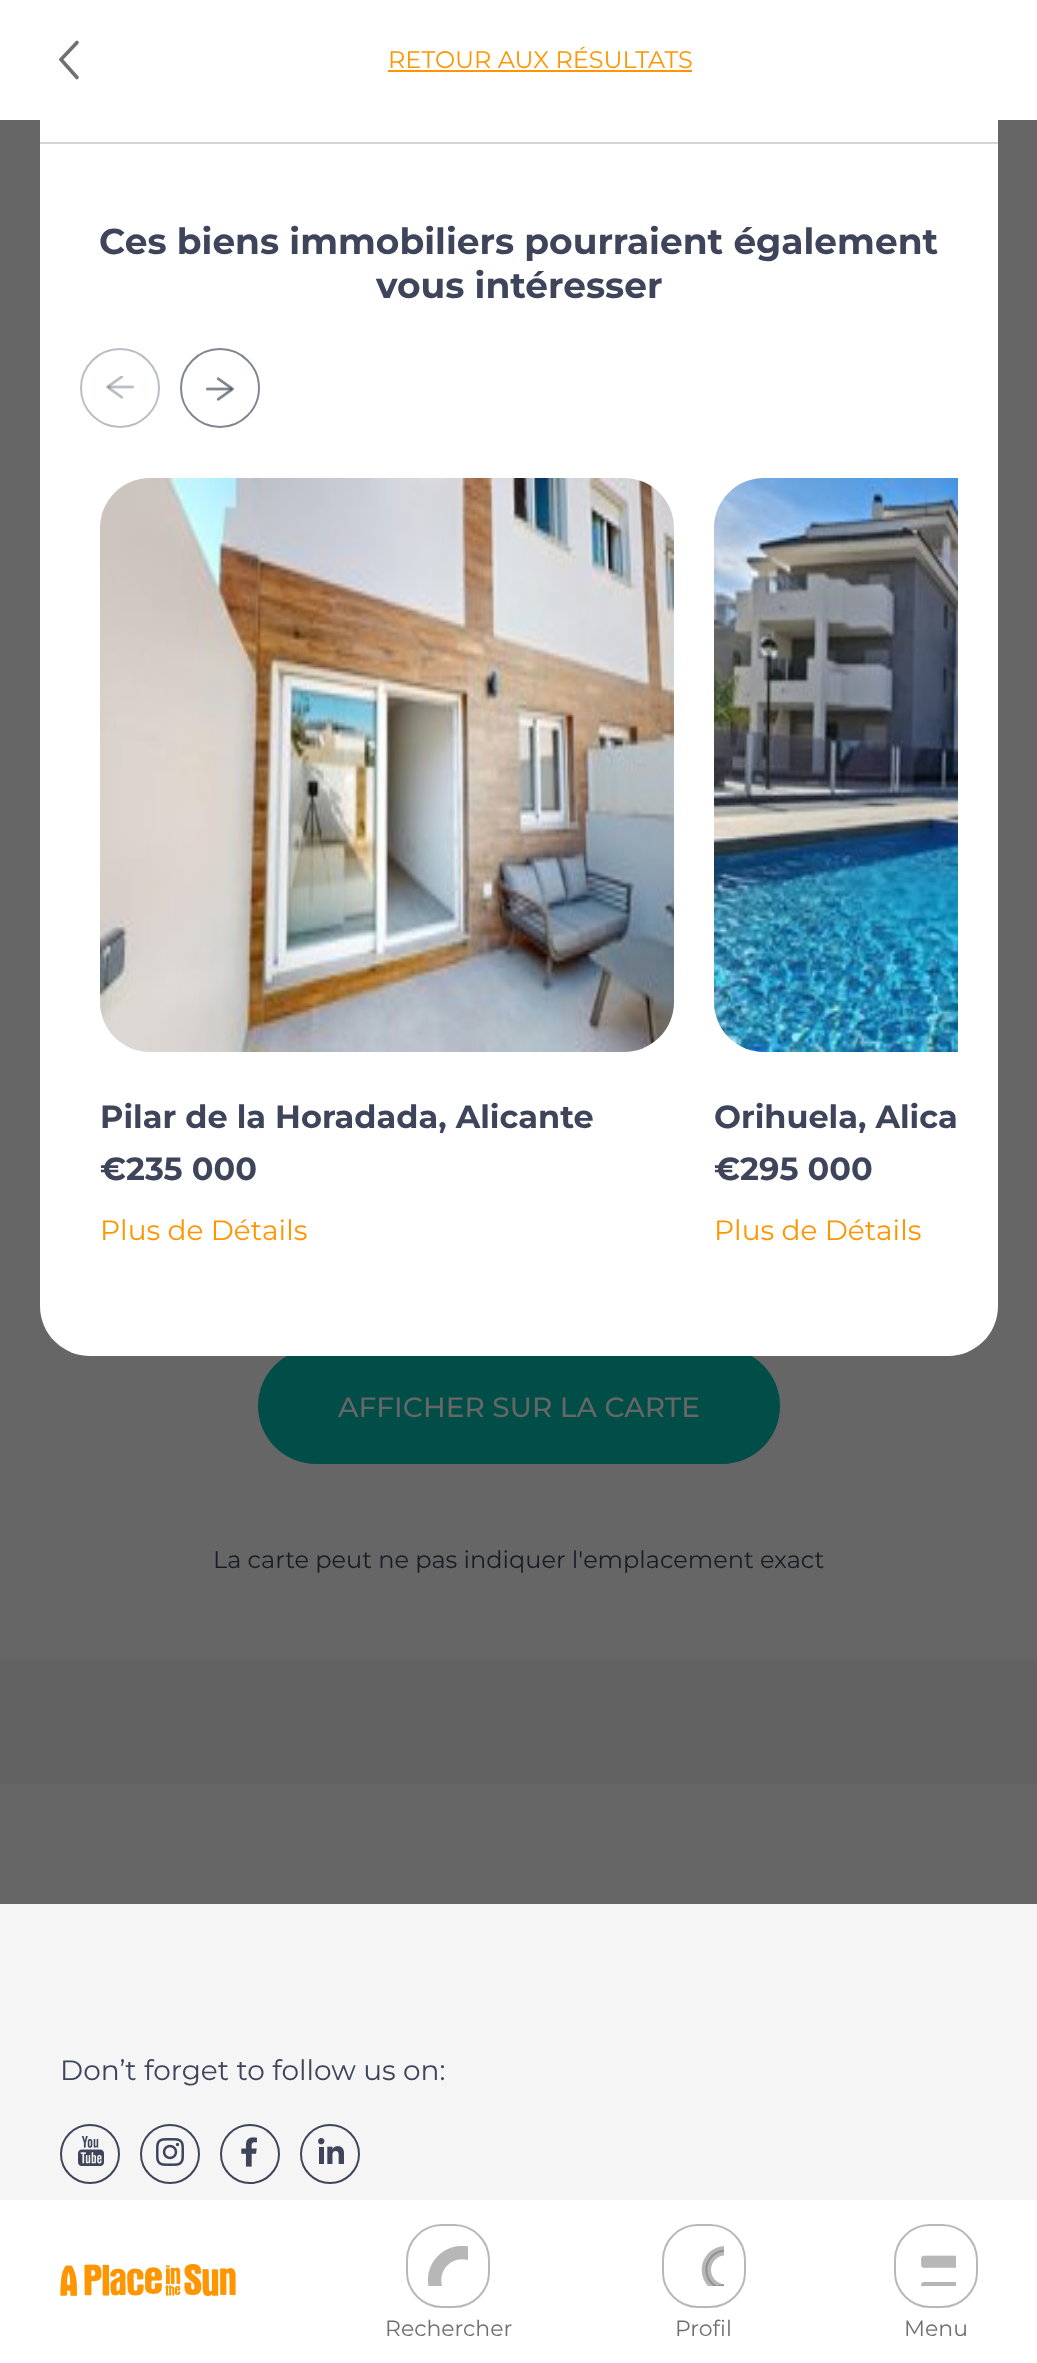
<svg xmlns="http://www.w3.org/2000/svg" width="1037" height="2363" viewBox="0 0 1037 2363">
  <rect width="100%" height="100%" fill="#666"/>
  <rect x="258" y="1348" width="522" height="116" rx="58" fill="#004e47"/>
  <rect x="40" y="-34" width="958" height="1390" rx="50" fill="#fff"/>
  <path d="M0 0h1037v120H0z" fill="#fff"/>
  <path d="M77 77.5L61 59.5L77 42.5" fill="none" stroke="#707070" stroke-width="3.6" stroke-linecap="round"/>
  <path d="M388 70h304v2H388z" fill="#ff9500"/>
  <path d="M40 142h958v2H40z" fill="#d5d5d5"/>
  <circle cx="120" cy="388" r="39" fill="none" stroke="#bbbec6" stroke-width="2"/>
  <image x="106" y="376" width="28" height="23" href="img/1.png"/>
  <circle cx="220" cy="388" r="39" fill="none" stroke="#828694" stroke-width="2"/>
  <image x="206" y="377" width="28" height="24" href="img/2.png"/>
  <image x="100" y="478" width="574" height="574" href="img/3.png"/>
  <image x="714" y="478" width="244" height="574" href="img/4.png"/>
  <path d="M0 1660h1037v124H0z" fill="#626262"/>
  <path d="M0 1904h1037v296H0z" fill="#f5f5f5"/>
  <circle cx="90" cy="2154" r="29" fill="none" stroke="#3e455b" stroke-width="2"/>
  <image x="78" y="2136" width="26" height="30" href="img/5.png"/>
  <circle cx="170" cy="2154" r="29" fill="none" stroke="#3e455b" stroke-width="2"/>
  <image x="156" y="2138" width="28" height="28" href="img/6.png"/>
  <circle cx="250" cy="2154" r="29" fill="none" stroke="#3e455b" stroke-width="2"/>
  <image x="241" y="2137" width="16" height="30" href="img/7.png"/>
  <circle cx="330" cy="2154" r="29" fill="none" stroke="#3e455b" stroke-width="2"/>
  <image x="318" y="2138" width="26" height="26" href="img/8.png"/>
  <path d="M0 2200h1037v163H0z" fill="#fff"/>
  <image x="60" y="2264" width="176" height="32" href="img/9.png"/>
  <rect x="407" y="2225" width="82" height="82" rx="35" fill="none" stroke="#b8b8b8" stroke-width="2"/>
  <image x="428" y="2246" width="40" height="40" href="img/10.png"/>
  <rect x="663" y="2225" width="82" height="82" rx="35" fill="none" stroke="#b8b8b8" stroke-width="2"/>
  <image x="701" y="2246" width="23" height="40" href="img/11.png"/>
  <rect x="895" y="2225" width="82" height="82" rx="35" fill="none" stroke="#b8b8b8" stroke-width="2"/>
  <image x="921" y="2255" width="35" height="31" href="img/12.png"/>
  <text x="388" y="68" font-family="Montserrat" font-size="24" fill="#ff9500">RETOUR AUX RÉSULTATS</text>
  <g font-family="Montserrat" font-size="36" font-weight="bold" fill="#3e455b">
    <text x="99" y="254">Ces biens immobiliers pourraient également</text>
    <text x="376" y="298">vous intéresser</text>
  </g>
  <g font-family="Montserrat" font-size="32" font-weight="bold" fill="#3e455b">
    <text x="100" y="1128">Pilar de la Horadada, Alicante</text>
    <text x="100" y="1180">€235 000</text>
  </g>
  <text x="100" y="1240" font-family="Montserrat" font-size="28" fill="#ff9500">Plus de Détails</text>
  <g font-family="Montserrat" font-size="32" font-weight="bold" fill="#3e455b">
    <text x="714" y="1128">Orihuela, Alica</text>
    <text x="714" y="1180">€295 000</text>
  </g>
  <text x="714" y="1240" font-family="Montserrat" font-size="28" fill="#ff9500">Plus de Détails</text>
  <text x="338" y="1417" font-family="Montserrat" font-size="28" font-weight="500" fill="#666">AFFICHER SUR LA CARTE</text>
  <text x="213" y="1568" font-family="Montserrat" font-size="24" fill="#191c24">La carte peut ne pas indiquer l'emplacement exact</text>
  <text x="60" y="2080" font-family="Montserrat" font-size="28" fill="#3e455b">Don’t forget to follow us on:</text>
  <g font-family="Montserrat" font-size="22" fill="#707070">
    <text x="385" y="2336">Rechercher</text>
    <text x="675" y="2336">Profil</text>
    <text x="904" y="2336">Menu</text>
  </g>
</svg>
